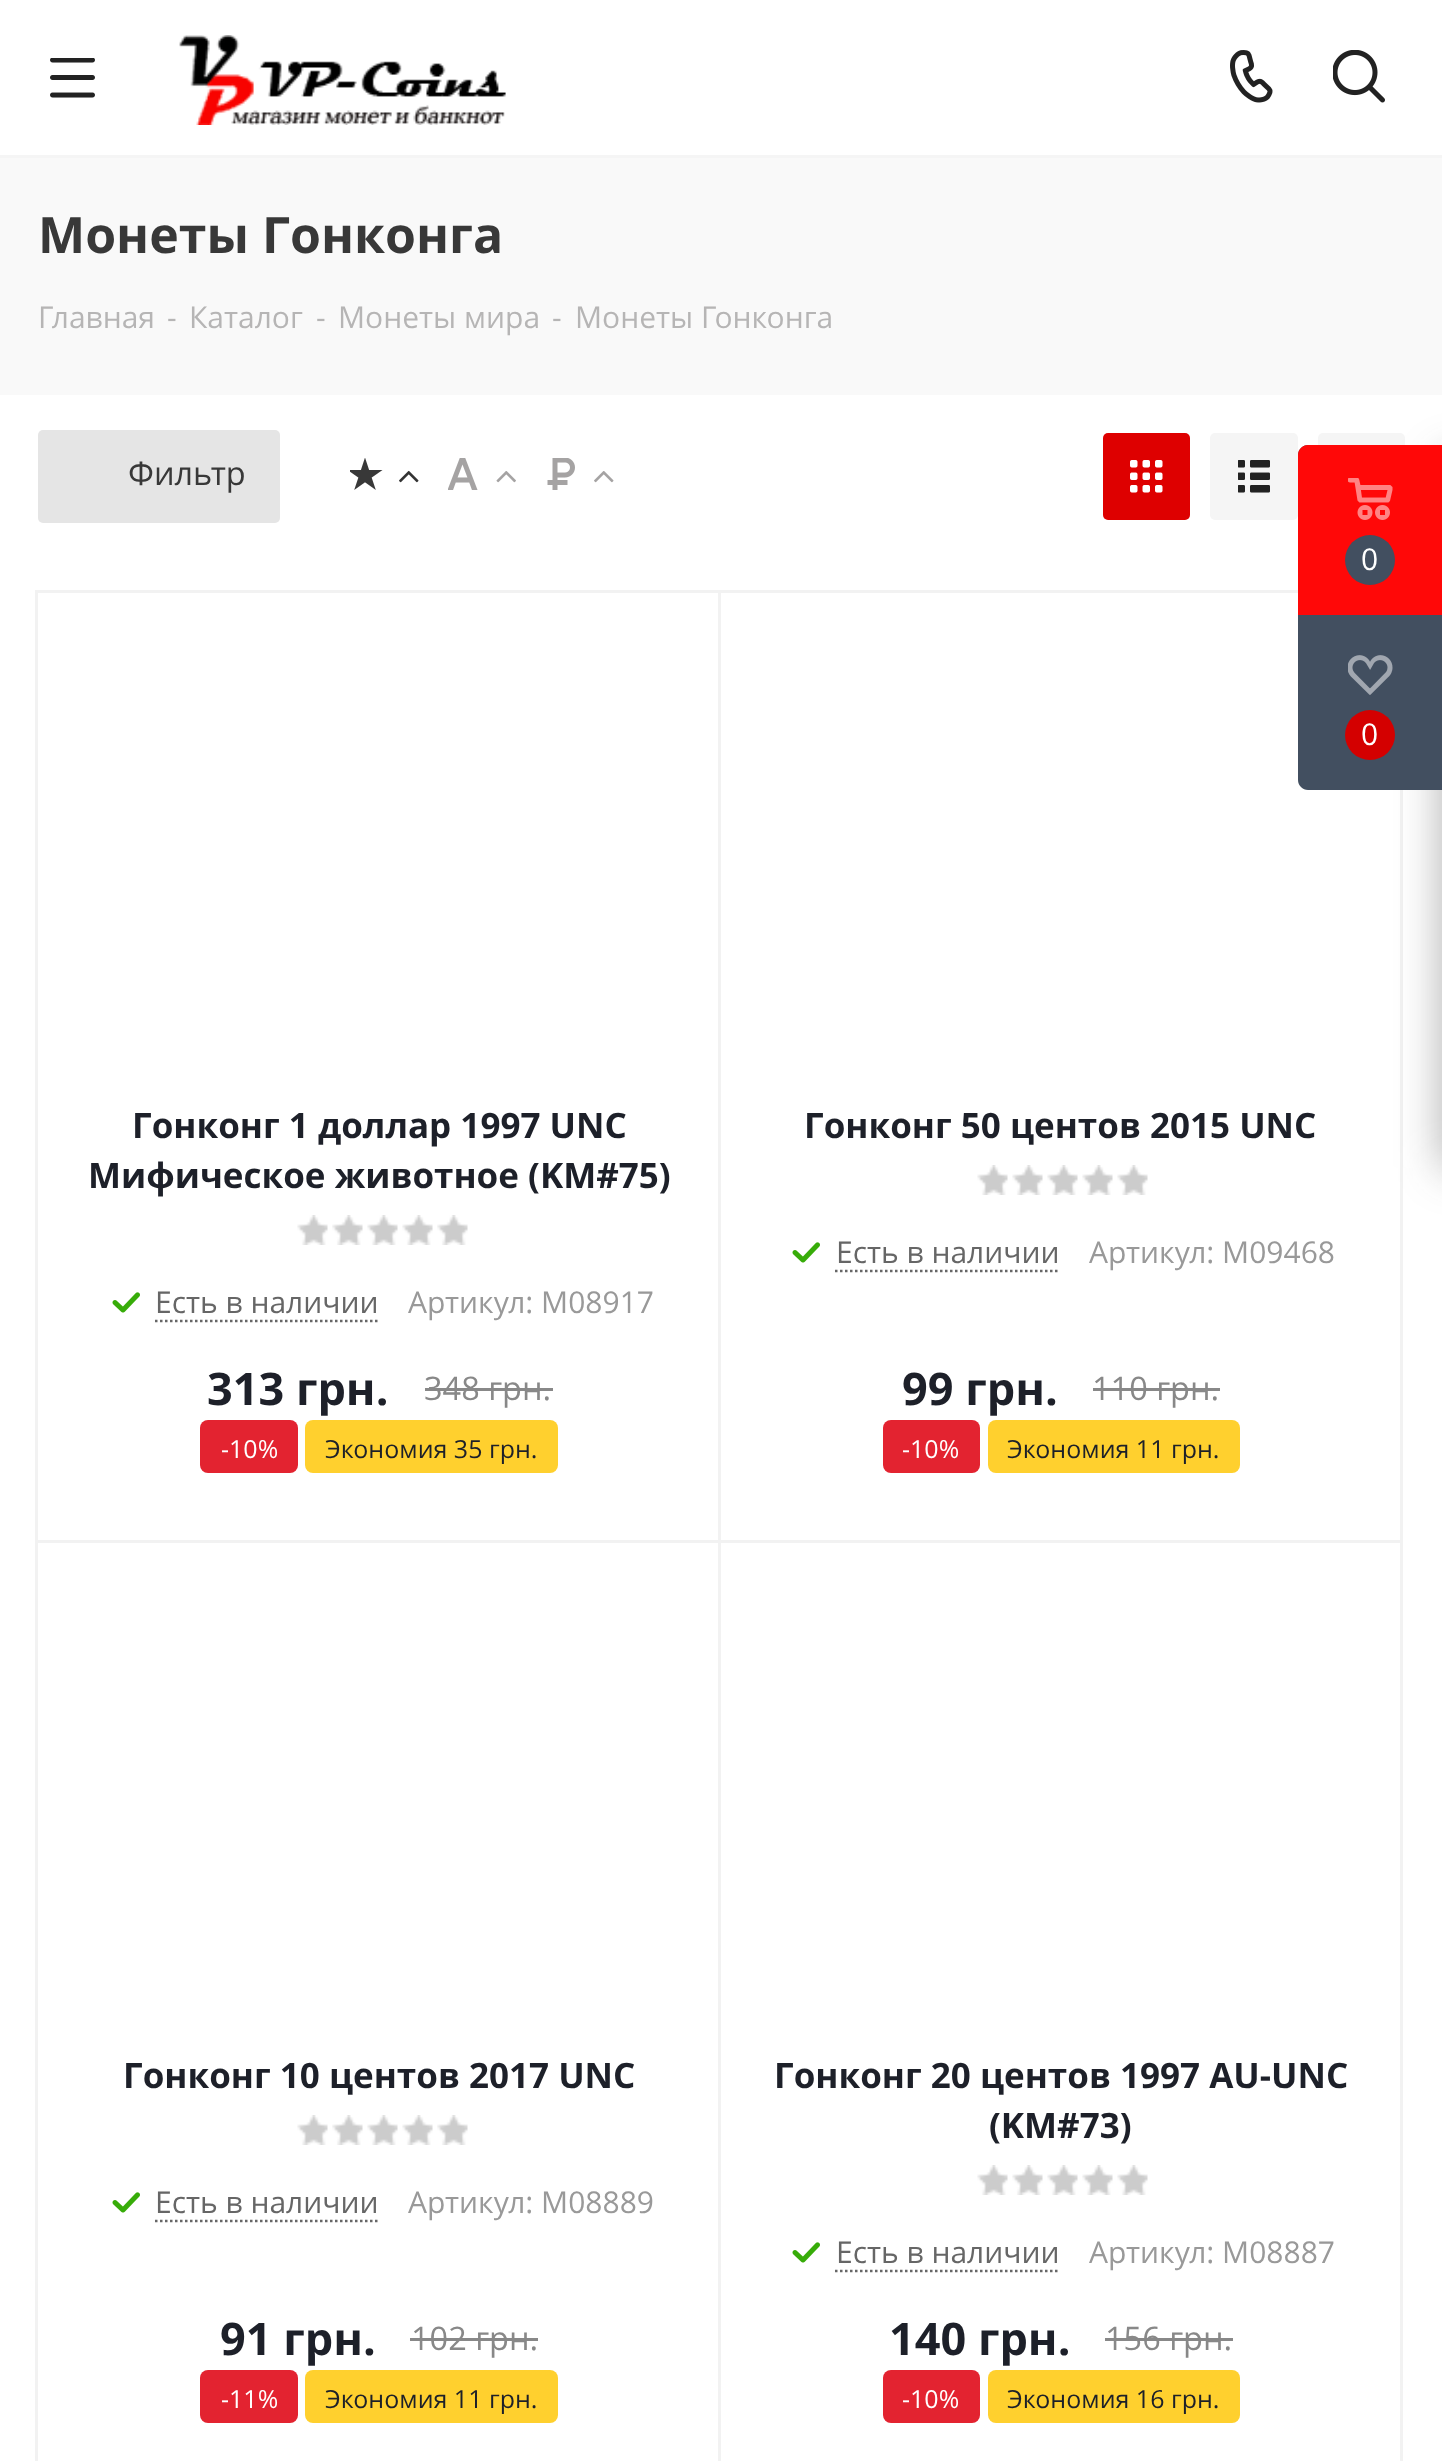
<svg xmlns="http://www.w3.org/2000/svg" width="1442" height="2461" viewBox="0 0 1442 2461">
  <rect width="100%" height="100%" fill="#fff"/>
  <path d="M0 155h1442v3H0z" fill="#f5f5f5"/>
  <image x="50" y="58" width="45" height="40" href="img/1.png"/>
  <image x="179" y="35" width="327" height="90" href="img/2.png"/>
  <image x="1230" y="50" width="43" height="53" href="img/3.png"/>
  <image x="1333" y="50" width="52" height="53" href="img/4.png"/>
  <path d="M0 158h1442v237H0z" fill="#f9f9f9"/>
  <rect x="38" y="430" width="242" height="93" rx="5" fill="#e5e5e5"/>
  <image x="350" y="458" width="33" height="32" href="img/5.png"/>
  <image x="399" y="470" width="20" height="13" href="img/6.png"/>
  <image x="448" y="458" width="30" height="32" href="img/7.png"/>
  <image x="496" y="471" width="20" height="12" href="img/8.png"/>
  <image x="547" y="458" width="28" height="32" href="img/9.png"/>
  <image x="594" y="471" width="20" height="12" href="img/10.png"/>
  <rect x="1103" y="433" width="87" height="87" rx="5" fill="#de0000"/>
  <image x="1130" y="460" width="33" height="33" href="img/11.png"/>
  <rect x="1210" y="433" width="88" height="87" rx="5" fill="#f5f5f5"/>
  <image x="1238" y="460" width="32" height="33" href="img/12.png"/>
  <rect x="1318" y="433" width="87" height="87" rx="5" fill="#f5f5f5"/>
  <path d="M36.5 591.5h685v950H36.5z" fill="none" stroke="#f2f2f2" stroke-width="3"/>
  <image x="297" y="1215" width="31" height="30" href="img/13.png"/>
  <image x="332" y="1215" width="31" height="30" href="img/14.png"/>
  <image x="367" y="1215" width="31" height="30" href="img/13.png"/>
  <image x="402" y="1215" width="31" height="30" href="img/13.png"/>
  <image x="437" y="1215" width="31" height="30" href="img/14.png"/>
  <image x="112" y="1292" width="28" height="21" href="img/15.png"/>
  <path d="M155 1321H377.5" fill="none" stroke="#666" stroke-width="2.5" stroke-dasharray="2.5 2.5"/>
  <path d="M425 1388h128v3H425z" fill="#888"/>
  <rect x="200" y="1420" width="98" height="53" rx="8" fill="#e32330"/>
  <rect x="305" y="1420" width="253" height="53" rx="8" fill="#ffd02e"/>
  <path d="M721 593h2v947H721z" fill="#fff"/>
  <path d="M719.5 591.5h682v950H719.5z" fill="none" stroke="#f2f2f2" stroke-width="3"/>
  <image x="977" y="1165" width="31" height="30" href="img/16.png"/>
  <image x="1012" y="1165" width="31" height="30" href="img/17.png"/>
  <image x="1047" y="1165" width="31" height="30" href="img/16.png"/>
  <image x="1082" y="1165" width="31" height="30" href="img/16.png"/>
  <image x="1117" y="1165" width="31" height="30" href="img/16.png"/>
  <image x="792" y="1242" width="28" height="21" href="img/15.png"/>
  <path d="M835 1271H1060" fill="none" stroke="#666" stroke-width="2.5" stroke-dasharray="2.5 2.5"/>
  <path d="M1093 1388h127v3H1093z" fill="#888"/>
  <rect x="883" y="1420" width="97" height="53" rx="8" fill="#e32330"/>
  <rect x="988" y="1420" width="252" height="53" rx="8" fill="#ffd02e"/>
  <path d="M36.5 1541.5h685v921H36.5z" fill="none" stroke="#f2f2f2" stroke-width="3"/>
  <image x="297" y="2115" width="31" height="30" href="img/13.png"/>
  <image x="332" y="2115" width="31" height="30" href="img/14.png"/>
  <image x="367" y="2115" width="31" height="30" href="img/13.png"/>
  <image x="402" y="2115" width="31" height="30" href="img/13.png"/>
  <image x="437" y="2115" width="31" height="30" href="img/14.png"/>
  <image x="112" y="2192" width="28" height="21" href="img/15.png"/>
  <path d="M155 2221H377.5" fill="none" stroke="#666" stroke-width="2.5" stroke-dasharray="2.5 2.5"/>
  <path d="M410 2338h128v3H410z" fill="#888"/>
  <rect x="200" y="2370" width="98" height="53" rx="8" fill="#e32330"/>
  <rect x="305" y="2370" width="253" height="53" rx="8" fill="#ffd02e"/>
  <path d="M721 1543h2v918H721z" fill="#fff"/>
  <path d="M719.5 1541.5h682v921H719.5z" fill="none" stroke="#f2f2f2" stroke-width="3"/>
  <image x="977" y="2165" width="31" height="30" href="img/13.png"/>
  <image x="1012" y="2165" width="31" height="30" href="img/18.png"/>
  <image x="1047" y="2165" width="31" height="30" href="img/13.png"/>
  <image x="1082" y="2165" width="31" height="30" href="img/13.png"/>
  <image x="1117" y="2165" width="31" height="30" href="img/13.png"/>
  <image x="792" y="2242" width="28" height="21" href="img/15.png"/>
  <path d="M835 2271H1060" fill="none" stroke="#666" stroke-width="2.5" stroke-dasharray="2.5 2.5"/>
  <path d="M1105 2338h128v3H1105z" fill="#888"/>
  <rect x="883" y="2370" width="97" height="53" rx="8" fill="#e32330"/>
  <rect x="988" y="2370" width="252" height="53" rx="8" fill="#ffd02e"/>
  <rect x="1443" y="460" width="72" height="708" rx="5" fill="#2c2c2c66" filter="blur(22.5px)"/>
  <path d="M1308 445H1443V790H1308C1302.5 790 1298 785.5 1298 780V455C1298 449.5 1302.5 445 1308 445Z" fill="#424f60"/>
  <path d="M1308 445H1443V615H1298V455C1298 449.5 1302.5 445 1308 445Z" fill="#ff0808"/>
  <image x="1348" y="478" width="45" height="42" href="img/19.png"/>
  <circle cx="1370" cy="560" r="25" fill="#424f60"/>
  <image x="1348" y="655" width="45" height="40" href="img/20.png"/>
  <circle cx="1370" cy="735" r="25" fill="#d40000"/>
  <text x="38" y="253" font-family="Open Sans" font-size="50" font-weight="bold" fill="#383838">Монеты Гонконга</text>
  <g font-family="Open Sans" font-size="30" fill="#b6b5b5">
    <text x="38" y="328">Главная</text>
    <text x="167" y="328">-</text>
    <text x="189" y="328">Каталог</text>
    <text x="316" y="328">-</text>
    <text x="338" y="328">Монеты мира</text>
    <text x="552" y="328">-</text>
    <text x="575" y="328">Монеты Гонконга</text>
  </g>
  <text x="128" y="485" font-family="Open Sans" font-size="32.5" fill="#383838">Фильтр</text>
  <g font-family="Open Sans" font-size="35" font-weight="bold" fill="#1d2029">
    <text x="132" y="1138">Гонконг 1 доллар 1997 UNC</text>
    <text x="88" y="1188">Мифическое животное (KM#75)</text>
  </g>
  <text x="155" y="1313" font-family="Open Sans" font-size="30" fill="#666">Есть в наличии</text>
  <text x="408" y="1313" font-family="Open Sans" font-size="30" fill="#999">Артикул: М08917</text>
  <text x="207" y="1405" font-family="Open Sans" font-size="45" font-weight="bold" fill="#1d2029">313 грн.</text>
  <text x="424" y="1400" font-family="Open Sans" font-size="32.5" fill="#888">348 грн.</text>
  <text x="221" y="1458" font-family="Open Sans" font-size="25" fill="#fff">-10%</text>
  <text x="325" y="1458" font-family="Open Sans" font-size="25" fill="#1d2029">Экономия 35 грн.</text>
  <text x="804" y="1138" font-family="Open Sans" font-size="35" font-weight="bold" fill="#1d2029">Гонконг 50 центов 2015 UNC</text>
  <text x="836" y="1263" font-family="Open Sans" font-size="30" fill="#666">Есть в наличии</text>
  <text x="1089" y="1263" font-family="Open Sans" font-size="30" fill="#999">Артикул: М09468</text>
  <text x="902" y="1405" font-family="Open Sans" font-size="45" font-weight="bold" fill="#1d2029">99 грн.</text>
  <text x="1092" y="1400" font-family="Open Sans" font-size="32.5" fill="#888">110 грн.</text>
  <text x="902" y="1458" font-family="Open Sans" font-size="25" fill="#fff">-10%</text>
  <text x="1007" y="1458" font-family="Open Sans" font-size="25" fill="#1d2029">Экономия 11 грн.</text>
  <text x="123" y="2088" font-family="Open Sans" font-size="35" font-weight="bold" fill="#1d2029">Гонконг 10 центов 2017 UNC</text>
  <text x="155" y="2213" font-family="Open Sans" font-size="30" fill="#666">Есть в наличии</text>
  <text x="408" y="2213" font-family="Open Sans" font-size="30" fill="#999">Артикул: М08889</text>
  <text x="220" y="2355" font-family="Open Sans" font-size="45" font-weight="bold" fill="#1d2029">91 грн.</text>
  <text x="411" y="2350" font-family="Open Sans" font-size="32.5" fill="#888">102 грн.</text>
  <text x="221" y="2408" font-family="Open Sans" font-size="25" fill="#fff">-11%</text>
  <text x="325" y="2408" font-family="Open Sans" font-size="25" fill="#1d2029">Экономия 11 грн.</text>
  <g font-family="Open Sans" font-size="35" font-weight="bold" fill="#1d2029">
    <text x="774" y="2088">Гонконг 20 центов 1997 AU-UNC</text>
    <text x="989" y="2138">(KM#73)</text>
  </g>
  <text x="836" y="2263" font-family="Open Sans" font-size="30" fill="#666">Есть в наличии</text>
  <text x="1089" y="2263" font-family="Open Sans" font-size="30" fill="#999">Артикул: М08887</text>
  <text x="889" y="2355" font-family="Open Sans" font-size="45" font-weight="bold" fill="#1d2029">140 грн.</text>
  <text x="1105" y="2350" font-family="Open Sans" font-size="32.5" fill="#888">156 грн.</text>
  <text x="902" y="2408" font-family="Open Sans" font-size="25" fill="#fff">-10%</text>
  <text x="1007" y="2408" font-family="Open Sans" font-size="25" fill="#1d2029">Экономия 16 грн.</text>
  <g font-family="Open Sans" font-size="30" fill="#fff">
    <text x="1361" y="570">0</text>
    <text x="1361" y="745">0</text>
  </g>
</svg>
